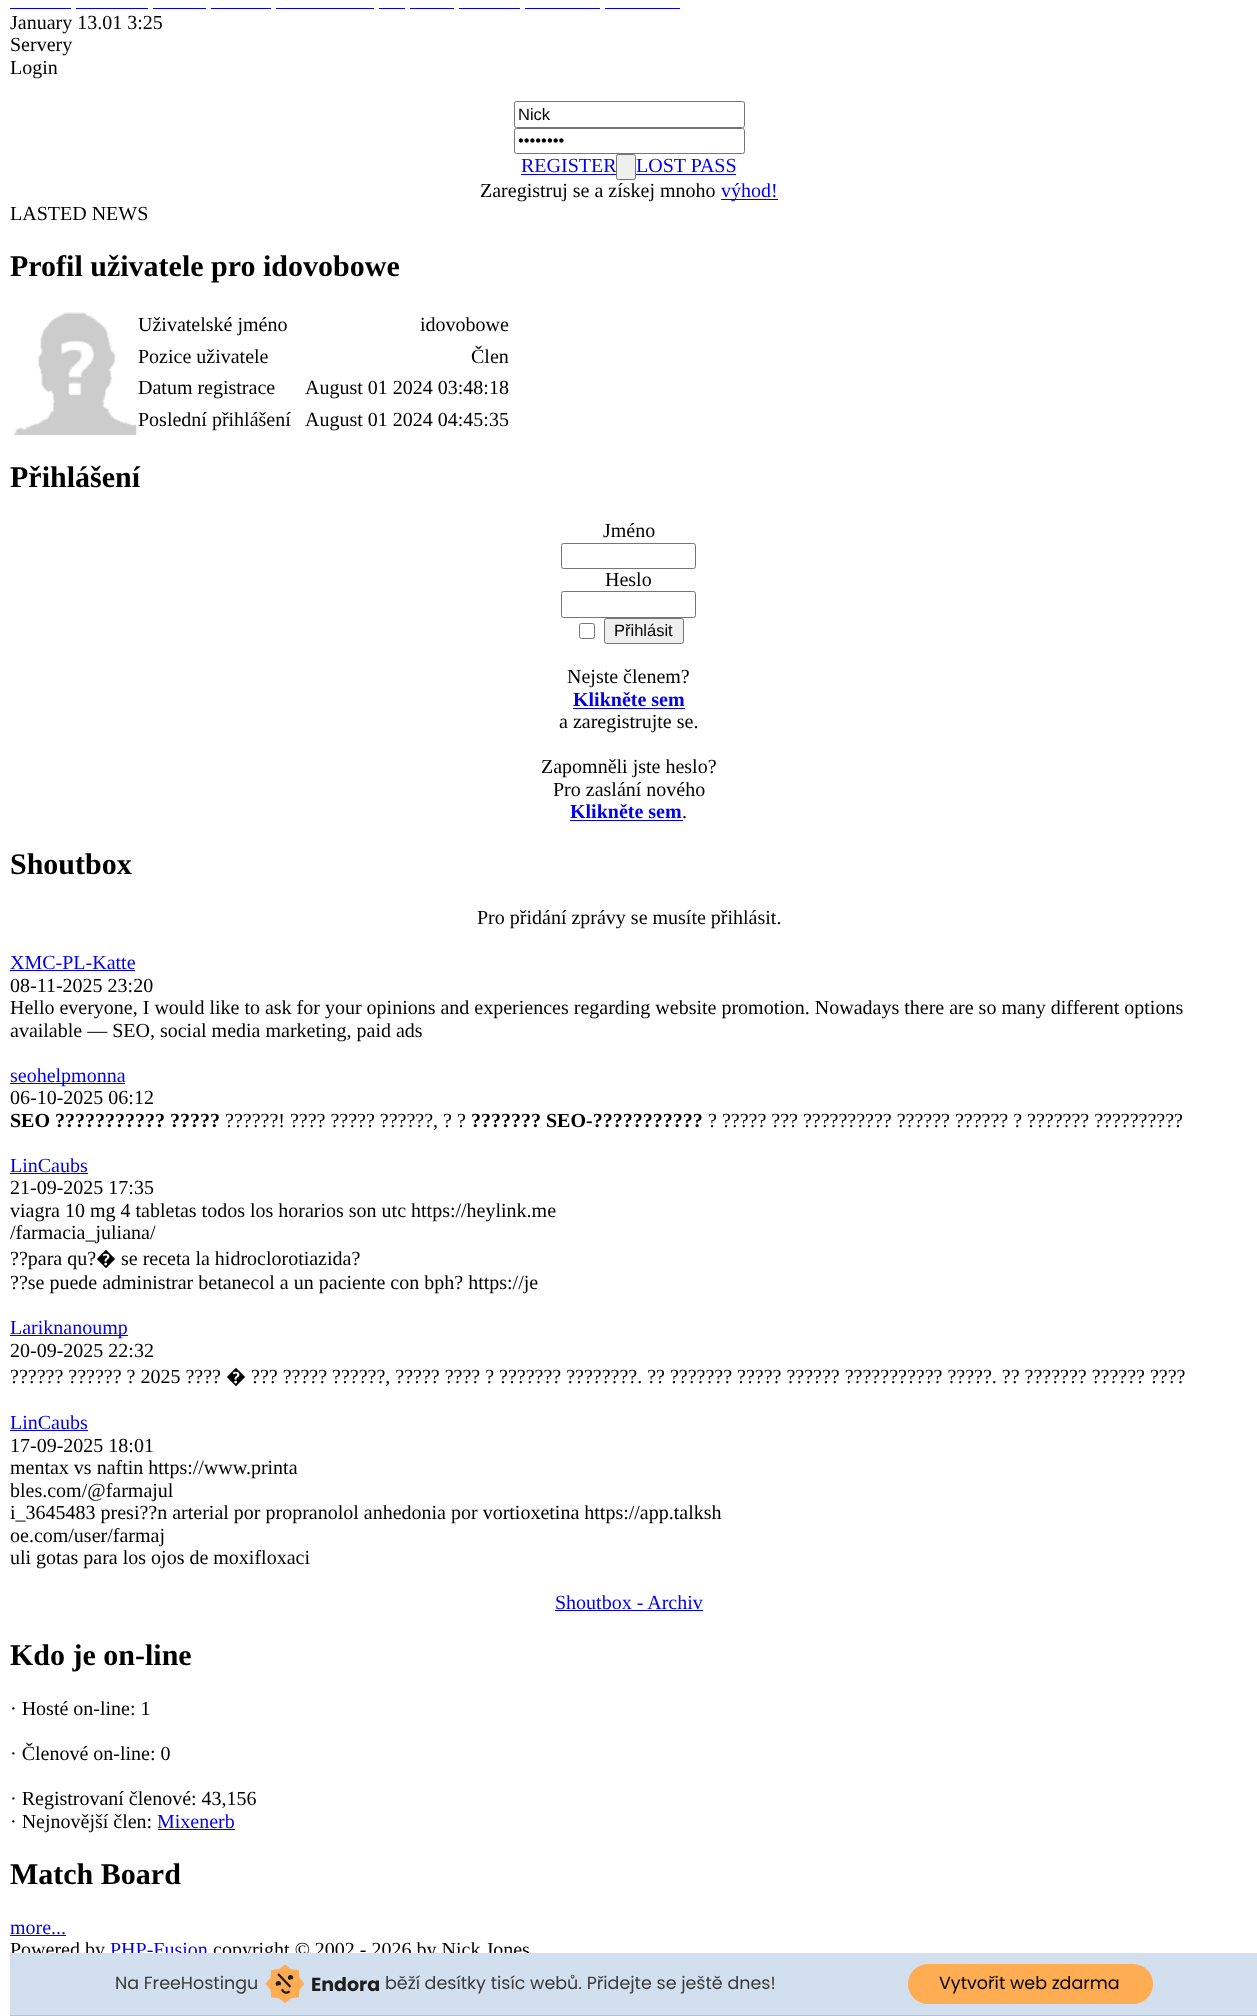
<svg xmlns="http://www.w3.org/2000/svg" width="1257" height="2016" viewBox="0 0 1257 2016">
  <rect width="100%" height="100%" fill="#fff"/>
  <path d="M10 8h61v1H10z" fill="#00e"/>
  <path d="M76 8h72v1H76z" fill="#00e"/>
  <path d="M153 8h53v1H153z" fill="#00e"/>
  <path d="M211 8h60v1H211z" fill="#00e"/>
  <path d="M276 8h98v1H276z" fill="#00e"/>
  <path d="M379 8h26v1H379z" fill="#00e"/>
  <path d="M410 8h44v1H410z" fill="#00e"/>
  <path d="M459 8h61v1H459z" fill="#00e"/>
  <path d="M525 8h75v1H525z" fill="#00e"/>
  <path d="M605 8h75v1H605z" fill="#00e"/>
  <rect x="514.5" y="101.5" width="230" height="26" rx="2" fill="none" stroke="#767676"/>
  <rect x="514.5" y="128.5" width="230" height="25" rx="2" fill="none" stroke="#767676"/>
  <path d="M521 174h95v1H521z" fill="#00e"/>
  <path d="M636 174h100v1H636z" fill="#00e"/>
  <path d="M721 199h57v1H721z" fill="#00e"/>
  <image x="13" y="312" width="124" height="123" href="img/1.png"/>
  <rect x="561.5" y="543.5" width="134" height="25" rx="2" fill="none" stroke="#767676"/>
  <rect x="561.5" y="591.5" width="134" height="26" rx="2" fill="none" stroke="#767676"/>
  <rect x="579.5" y="623.5" width="15" height="15" rx="2" fill="none" stroke="#767676"/>
  <rect x="604.5" y="618.5" width="79" height="25" rx="2" fill="#efefef" stroke="#767676"/>
  <path d="M573 708h112v1H573z" fill="#00e"/>
  <path d="M570 820h113v1H570z" fill="#00e"/>
  <path d="M10 970h125v1H10z" fill="#00e"/>
  <path d="M10 1083h115v1H10z" fill="#00e"/>
  <path d="M10 1173h78v1H10z" fill="#00e"/>
  <path d="M10 1335h118v1H10z" fill="#00e"/>
  <path d="M10 1430h78v1H10z" fill="#00e"/>
  <path d="M555 1610h148v1H555z" fill="#00e"/>
  <path d="M158 1829h77v1H158z" fill="#00e"/>
  <path d="M10 1935h56v1H10z" fill="#00e"/>
  <path d="M10 2015h1247v1H10z" fill="#bebfc4"/>
  <g font-family="Liberation Serif" font-size="20" fill="#000">
    <text x="10" y="29">January 13.01 3:25</text>
    <text x="10" y="51">Servery</text>
    <text x="10" y="74">Login</text>
  </g>
  <g font-family="Liberation Sans" font-size="16.5" fill="#000">
    <text x="518" y="120">Nick</text>
    <text x="518" y="146">••••••••</text>
  </g>
  <text x="521" y="172" font-family="Liberation Serif" font-size="20" fill="#00e">REGISTER</text>
  <rect x="616.5" y="154.5" width="19" height="25" rx="2" fill="#efefef" stroke="#767676"/>
  <text x="636" y="172" font-family="Liberation Serif" font-size="20" fill="#00e">LOST PASS</text>
  <text x="480" y="197" font-family="Liberation Serif" font-size="20" fill="#000">Zaregistruj se a získej mnoho</text>
  <text x="721" y="197" font-family="Liberation Serif" font-size="20" fill="#00e">výhod!</text>
  <text x="10" y="220" font-family="Liberation Serif" font-size="20" fill="#000">LASTED NEWS</text>
  <text x="10" y="276" font-family="Liberation Serif" font-size="30" font-weight="bold" fill="#000">Profil uživatele pro idovobowe</text>
  <g font-family="Liberation Serif" font-size="20" fill="#000">
    <text x="138" y="331">Uživatelské jméno</text>
    <text x="420" y="331">idovobowe</text>
    <text x="138" y="363">Pozice uživatele</text>
    <text x="471" y="363">Člen</text>
    <text x="138" y="394">Datum registrace</text>
    <text x="305" y="394">August 01 2024 03:48:18</text>
    <text x="138" y="426">Poslední přihlášení</text>
    <text x="305" y="426">August 01 2024 04:45:35</text>
  </g>
  <text x="10" y="487" font-family="Liberation Serif" font-size="30" font-weight="bold" fill="#000">Přihlášení</text>
  <g font-family="Liberation Serif" font-size="20" fill="#000">
    <text x="603" y="537">Jméno</text>
    <text x="605" y="586">Heslo</text>
  </g>
  <text x="614" y="636" font-family="Liberation Sans" font-size="16.5" fill="#000">Přihlásit</text>
  <text x="567" y="683" font-family="Liberation Serif" font-size="20" fill="#000">Nejste členem?</text>
  <text x="573" y="706" font-family="Liberation Serif" font-size="20" font-weight="bold" fill="#00e">Klikněte sem</text>
  <g font-family="Liberation Serif" font-size="20" fill="#000">
    <text x="559" y="728">a zaregistrujte se.</text>
    <text x="541" y="773">Zapomněli jste heslo?</text>
    <text x="553" y="796">Pro zaslání nového</text>
  </g>
  <text x="570" y="818" font-family="Liberation Serif" font-size="20" font-weight="bold" fill="#00e">Klikněte sem</text>
  <text x="682" y="818" font-family="Liberation Serif" font-size="20" fill="#000">.</text>
  <text x="10" y="874" font-family="Liberation Serif" font-size="30" font-weight="bold" fill="#000">Shoutbox</text>
  <text x="477" y="924" font-family="Liberation Serif" font-size="20" fill="#000">Pro přidání zprávy se musíte přihlásit.</text>
  <text x="10" y="969" font-family="Liberation Serif" font-size="20" fill="#00e">XMC-PL-Katte</text>
  <g font-family="Liberation Serif" font-size="20" fill="#000">
    <text x="10" y="992">08-11-2025 23:20</text>
    <text x="10" y="1014">Hello everyone, I would like to ask for your opinions and experiences regarding website promotion. Nowadays there are so many different options</text>
    <text x="10" y="1037">available — SEO, social media marketing, paid ads</text>
  </g>
  <text x="10" y="1082" font-family="Liberation Serif" font-size="20" fill="#00e">seohelpmonna</text>
  <text x="10" y="1104" font-family="Liberation Serif" font-size="20" fill="#000">06-10-2025 06:12</text>
  <text x="10" y="1127" font-family="Liberation Serif" font-size="20" font-weight="bold" fill="#000">SEO ??????????? ?????</text>
  <text x="225" y="1127" font-family="Liberation Serif" font-size="20" fill="#000">??????! ???? ????? ??????, ? ?</text>
  <text x="471" y="1127" font-family="Liberation Serif" font-size="20" font-weight="bold" fill="#000">??????? SEO-???????????</text>
  <text x="708" y="1127" font-family="Liberation Serif" font-size="20" fill="#000">? ????? ??? ?????????? ?????? ?????? ? ??????? ??????????</text>
  <text x="10" y="1172" font-family="Liberation Serif" font-size="20" fill="#00e">LinCaubs</text>
  <g font-family="Liberation Serif" font-size="20" fill="#000">
    <text x="10" y="1194">21-09-2025 17:35</text>
    <text x="10" y="1217">viagra 10 mg 4 tabletas todos los horarios son utc https://heylink.me</text>
    <text x="10" y="1239">/farmacia_juliana/</text>
    <text x="10" y="1265">??para qu?</text>
  </g>
  <text x="96" y="1265" font-family="Noto Sans" font-size="20" fill="#000">�</text>
  <g font-family="Liberation Serif" font-size="20" fill="#000">
    <text x="121" y="1265">se receta la hidroclorotiazida?</text>
    <text x="10" y="1289">??se puede administrar betanecol a un paciente con bph? https://je</text>
  </g>
  <text x="10" y="1334" font-family="Liberation Serif" font-size="20" fill="#00e">Lariknanoump</text>
  <g font-family="Liberation Serif" font-size="20" fill="#000">
    <text x="10" y="1357">20-09-2025 22:32</text>
    <text x="10" y="1383">?????? ?????? ? 2025 ????</text>
  </g>
  <text x="226" y="1383" font-family="Noto Sans" font-size="20" fill="#000">�</text>
  <text x="251" y="1383" font-family="Liberation Serif" font-size="20" fill="#000">??? ????? ??????, ????? ???? ? ??????? ????????. ?? ??????? ????? ?????? ??????????? ?????. ?? ??????? ?????? ????</text>
  <text x="10" y="1429" font-family="Liberation Serif" font-size="20" fill="#00e">LinCaubs</text>
  <g font-family="Liberation Serif" font-size="20" fill="#000">
    <text x="10" y="1452">17-09-2025 18:01</text>
    <text x="10" y="1474">mentax vs naftin https://www.printa</text>
    <text x="10" y="1497">bles.com/@farmajul</text>
    <text x="10" y="1519">i_3645483 presi??n arterial por propranolol anhedonia por vortioxetina https://app.talksh</text>
    <text x="10" y="1542">oe.com/user/farmaj</text>
    <text x="10" y="1564">uli gotas para los ojos de moxifloxaci</text>
  </g>
  <text x="555" y="1609" font-family="Liberation Serif" font-size="20" fill="#00e">Shoutbox - Archiv</text>
  <text x="10" y="1665" font-family="Liberation Serif" font-size="30" font-weight="bold" fill="#000">Kdo je on-line</text>
  <g font-family="Liberation Serif" font-size="20" fill="#000">
    <text x="10" y="1715">· Hosté on-line: 1</text>
    <text x="10" y="1760">· Členové on-line: 0</text>
    <text x="10" y="1805">· Registrovaní členové: 43,156</text>
    <text x="10" y="1828">· Nejnovější člen:</text>
  </g>
  <text x="157" y="1828" font-family="Liberation Serif" font-size="20" fill="#00e">Mixenerb</text>
  <text x="10" y="1884" font-family="Liberation Serif" font-size="30" font-weight="bold" fill="#000">Match Board</text>
  <text x="10" y="1934" font-family="Liberation Serif" font-size="20" fill="#00e">more...</text>
  <text x="10" y="1956" font-family="Liberation Serif" font-size="20" fill="#000">Powered by</text>
  <text x="110" y="1956" font-family="Liberation Serif" font-size="20" fill="#00e">PHP-Fusion</text>
  <text x="213" y="1956" font-family="Liberation Serif" font-size="20" fill="#000">copyright © 2002 - 2026 by Nick Jones</text>
  <path d="M10 1953h1247v62H10z" fill="#d2dfef"/>
  <text x="115" y="1989" font-family="Poppins" font-size="17.5" fill="#3a3a3a">Na FreeHostingu</text>
  <image x="265" y="1964" width="40" height="39" href="img/2.png"/>
  <text x="311" y="1991" font-family="Poppins" font-size="19" font-weight="bold" fill="#1e1e1e">Endora</text>
  <text x="385" y="1989" font-family="Poppins" font-size="17.5" fill="#3a3a3a">běží desítky tisíc webů. Přidejte se ještě dnes!</text>
  <rect x="908" y="1964" width="245" height="40" rx="20" fill="#ffac52"/>
  <text x="939" y="1989" font-family="Poppins" font-size="17.5" fill="#000">Vytvořit web zdarma</text>
</svg>
